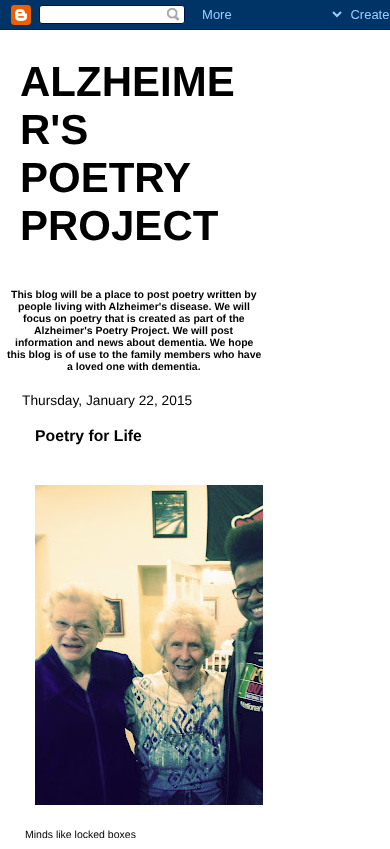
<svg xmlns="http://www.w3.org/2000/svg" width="390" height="849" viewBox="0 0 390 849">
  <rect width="100%" height="100%" fill="#fff"/>
  <image x="0" y="0" width="390" height="30" href="img/1.png"/>
  <image x="35" y="485" width="228" height="320" href="img/2.png"/>
  <g font-family="Liberation Sans" font-size="42" font-weight="bold" fill="#000">
    <text x="20" y="96">ALZHEIME</text>
    <text x="20" y="144">R'S</text>
    <text x="20" y="192">POETRY</text>
    <text x="20" y="240">PROJECT</text>
  </g>
  <g font-family="Liberation Sans" font-size="10.5" font-weight="bold" fill="#000">
    <text x="11" y="298">This blog will be a place to post poetry written by</text>
    <text x="18" y="310">people living with Alzheimer's disease. We will</text>
    <text x="23" y="322">focus on poetry that is created as part of the</text>
    <text x="34" y="334">Alzheimer's Poetry Project. We will post</text>
    <text x="15" y="346">information and news about dementia. We hope</text>
    <text x="7" y="358">this blog is of use to the family members who have</text>
    <text x="67" y="370">a loved one with dementia.</text>
  </g>
  <text x="22" y="405" font-family="Liberation Sans" font-size="13.75" fill="#000">Thursday, January 22, 2015</text>
  <text x="35" y="441" font-family="Liberation Sans" font-size="15.75" font-weight="bold" fill="#000">Poetry for Life</text>
  <text x="25" y="838" font-family="Liberation Sans" font-size="10.5" fill="#000">Minds like locked boxes</text>
</svg>
